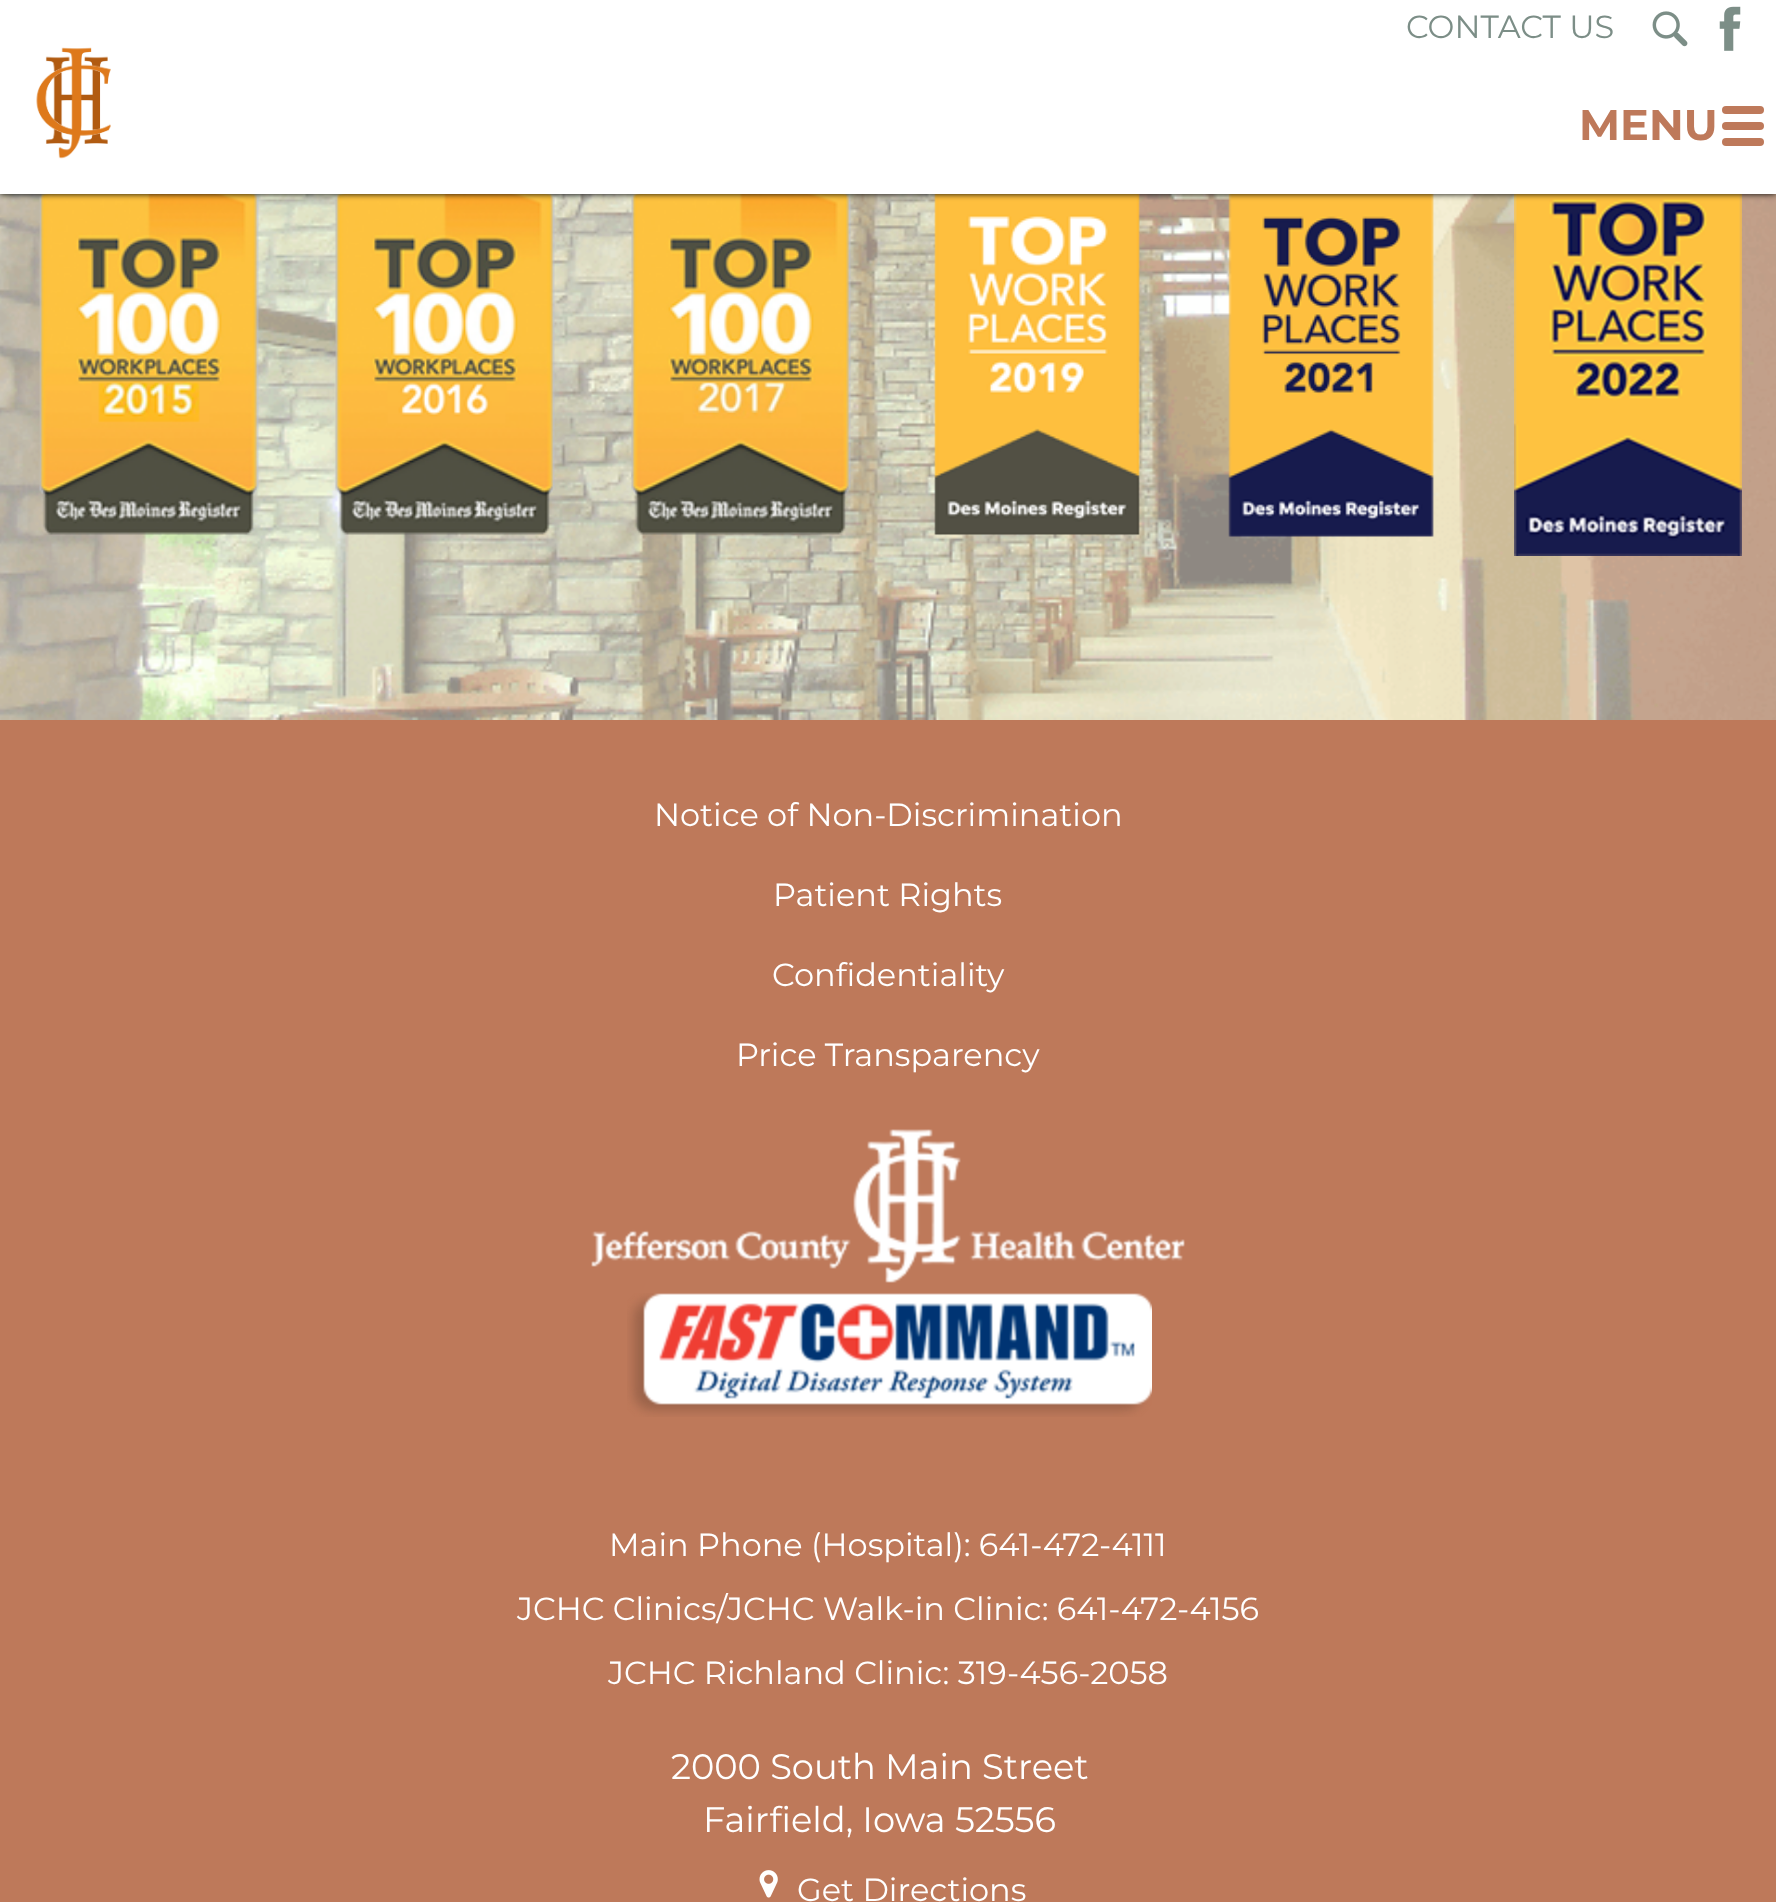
<svg xmlns="http://www.w3.org/2000/svg" width="1776" height="1902" viewBox="0 0 1776 1902">
  <rect width="100%" height="100%" fill="#be795a"/>
  <image x="0" y="194" width="1776" height="526" href="img/4.png"/>
  <image x="39" y="194" width="220" height="341" href="img/5.png"/>
  <image x="335" y="194" width="220" height="341" href="img/6.png"/>
  <image x="631" y="194" width="220" height="341" href="img/7.png"/>
  <image x="934" y="194" width="206" height="341" href="img/8.png"/>
  <image x="1228" y="194" width="206" height="343" href="img/9.png"/>
  <image x="1514" y="194" width="228" height="362" href="img/10.png"/>
  <path d="M0 0h1776v194H0z" fill="#000" filter="blur(3px)"/>
  <path d="M0 0h1776v194H0z" fill="#fff"/>
  <image x="1652" y="11" width="36" height="36" href="img/1.png"/>
  <image x="1719" y="6" width="22" height="45" href="img/2.png"/>
  <image x="36" y="47" width="75" height="112" href="img/3.png"/>
  <rect x="1722" y="106" width="42" height="8" rx="4" fill="#be795a"/>
  <rect x="1722" y="122" width="42" height="8" rx="4" fill="#be795a"/>
  <rect x="1722" y="138" width="42" height="8" rx="4" fill="#be795a"/>
  <image x="591" y="1129" width="594" height="154" href="img/11.png"/>
  <image x="627" y="1293" width="525" height="124" href="img/12.png"/>
  <image x="759" y="1870" width="19" height="28" href="img/13.png"/>
  <text x="1406" y="38" font-family="Montserrat" font-size="32" fill="#7c8e87">CONTACT US</text>
  <text x="1579" y="140" font-family="Montserrat" font-size="43" font-weight="bold" fill="#be795a">MENU</text>
  <g font-family="Montserrat" font-size="32" fill="#fff">
    <text x="654" y="826">Notice of Non-Discrimination</text>
    <text x="773" y="906">Patient Rights</text>
    <text x="772" y="986">Confidentiality</text>
    <text x="736" y="1066">Price Transparency</text>
    <text x="609" y="1556">Main Phone (Hospital): 641-472-4111</text>
    <text x="517" y="1620">JCHC Clinics/JCHC Walk-in Clinic: 641-472-4156</text>
    <text x="608" y="1684">JCHC Richland Clinic: 319-456-2058</text>
  </g>
  <g font-family="Montserrat" font-size="35.25" fill="#fff">
    <text x="671" y="1779">2000 South Main Street</text>
    <text x="703" y="1832">Fairfield, Iowa 52556</text>
  </g>
  <text x="797" y="1901" font-family="Montserrat" font-size="32" fill="#fff">Get Directions</text>
</svg>
